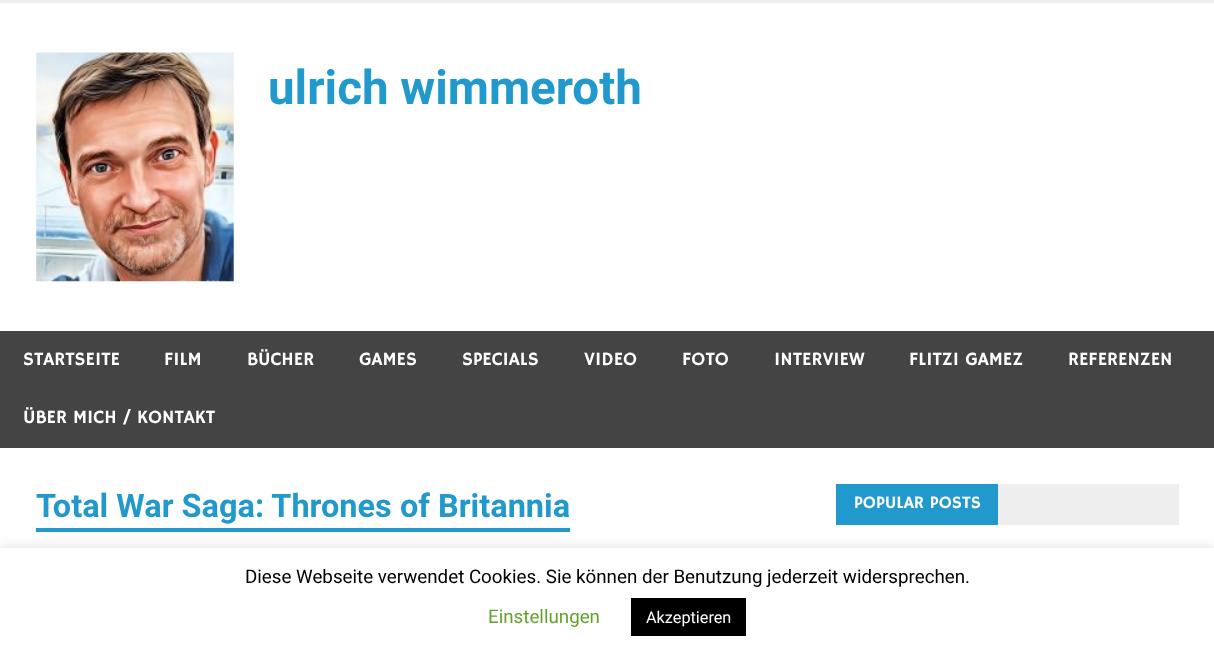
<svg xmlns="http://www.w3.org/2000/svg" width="1214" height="657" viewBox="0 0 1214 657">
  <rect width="100%" height="100%" fill="#fff"/>
  <path d="M0 0h1214v3H0z" fill="#eee"/>
  <image x="36" y="52" width="198" height="230" href="img/1.png"/>
  <path d="M0 331h1214v117H0z" fill="#444"/>
  <path d="M36 528h534v4H36z" fill="#29c"/>
  <path d="M998 484h181v41H998z" fill="#eee"/>
  <path d="M836 484h162v41H836z" fill="#29c"/>
  <path d="M0 546h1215v110H0z" fill="#acabab4d" filter="blur(6px)"/>
  <path d="M0 548h1214v109H0z" fill="#fff"/>
  <path d="M631 598h115v38H631z" fill="#000"/>
  <text x="268" y="104" font-family="Roboto" font-size="47.5" font-weight="bold" fill="#29c">ulrich wimmeroth</text>
  <g font-family="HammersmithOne" font-size="18.75" fill="#fff">
    <text x="23" y="365">STARTSEITE</text>
    <text x="164" y="365">FILM</text>
    <text x="247" y="365">BÜCHER</text>
    <text x="359" y="365">GAMES</text>
    <text x="462" y="365">SPECIALS</text>
    <text x="584" y="365">VIDEO</text>
    <text x="682" y="365">FOTO</text>
    <text x="774" y="365">INTERVIEW</text>
    <text x="909" y="365">FLITZI GAMEZ</text>
    <text x="1068" y="365">REFERENZEN</text>
    <text x="23" y="423">ÜBER MICH / KONTAKT</text>
  </g>
  <text x="36" y="517" font-family="Roboto" font-size="32.5" font-weight="bold" fill="#29c">Total War Saga: Thrones of Britannia</text>
  <text x="854" y="508" font-family="HammersmithOne" font-size="17.5" fill="#fff">POPULAR POSTS</text>
  <text x="245" y="583" font-family="Roboto" font-size="18.75" fill="#000">Diese Webseite verwendet Cookies. Sie können der Benutzung jederzeit widersprechen.</text>
  <text x="488" y="623" font-family="Roboto" font-size="18.75" fill="#62a329">Einstellungen</text>
  <text x="646" y="623" font-family="Roboto" font-size="16.25" fill="#fff">Akzeptieren</text>
</svg>
